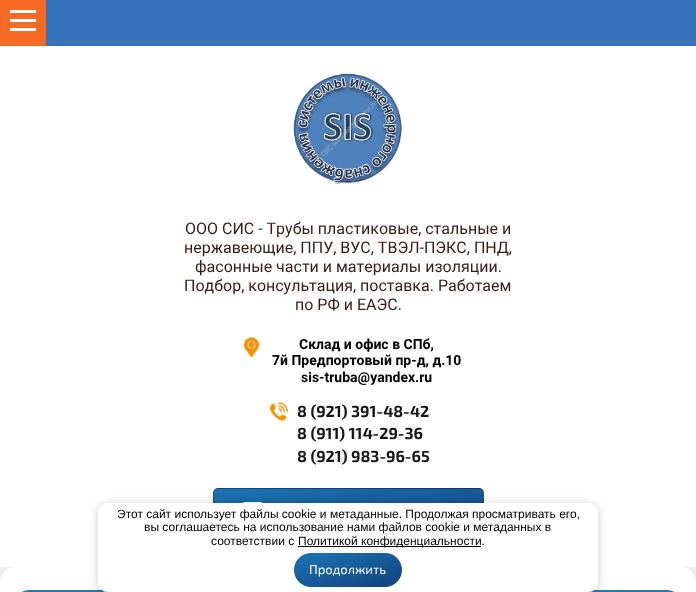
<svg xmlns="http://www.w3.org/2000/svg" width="696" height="592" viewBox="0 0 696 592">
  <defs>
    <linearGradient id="g1" gradientUnits="userSpaceOnUse" x1="348" y1="590" x2="348" y2="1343"><stop offset="0" stop-color="#1d7ab5"/><stop offset="1" stop-color="#0d2c6d"/></linearGradient>
    <linearGradient id="g2" gradientUnits="userSpaceOnUse" x1="338" y1="539" x2="358" y2="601"><stop offset="0" stop-color="#1c75b1"/><stop offset="1" stop-color="#124181"/></linearGradient>
  </defs>
  <rect width="100%" height="100%" fill="#eee"/>
  <path d="M46 0h650v46H46z" fill="#3671ba"/>
  <path d="M0 0h46v46H0z" fill="#f76a23"/>
  <path d="M10 10h26v3H10z" fill="#fff"/>
  <path d="M10 19h26v3H10z" fill="#fff"/>
  <path d="M10 28h26v3H10z" fill="#fff"/>
  <path d="M0 46h696v521H0z" fill="#fff"/>
  <image x="293" y="73" width="109" height="111" href="img/1.png"/>
  <image x="244" y="337" width="15" height="21" href="img/2.png"/>
  <image x="270" y="402" width="18" height="19" href="img/3.png"/>
  <image x="213" y="488" width="271" height="15" href="img/4.png"/>
  <rect x="213.5" y="488.5" width="270" height="48" rx="4.5" fill="none" stroke="#00000033"/>
  <rect y="567" width="696" height="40" rx="15" fill="#fff"/>
  <rect x="20" y="590" width="656" height="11" rx="9" fill="url(#g1)"/>
  <rect x="98" y="504" width="500" height="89" rx="9" fill="#00000033" filter="blur(5px)"/>
  <rect x="98" y="503" width="500" height="89" rx="9" fill="#fff"/>
  <path d="M298 546h183v1H298z" fill="#000"/>
  <rect x="294" y="553" width="108" height="34" rx="17" fill="url(#g2)"/>
  <g font-family="Roboto" font-size="16" fill="#381c18">
    <text x="185" y="234">ООО СИС - Трубы пластиковые, стальные и</text>
    <text x="184" y="253">нержавеющие, ППУ, ВУС, ТВЭЛ-ПЭКС, ПНД,</text>
    <text x="195" y="272">фасонные части и материалы изоляции.</text>
    <text x="184" y="291">Подбор, консультация, поставка. Работаем</text>
    <text x="295" y="310">по РФ и ЕАЭС.</text>
  </g>
  <g font-family="Roboto" font-size="14" font-weight="bold" fill="#000">
    <text x="299" y="349">Склад и офис в СПб,</text>
    <text x="272" y="365">7й Предпортовый пр-д, д.10</text>
    <text x="301" y="382">sis-truba@yandex.ru</text>
  </g>
  <g font-family="'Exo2'" font-size="16" font-weight="bold" fill="#171717">
    <text x="297" y="417">8 (921) 391-48-42</text>
    <text x="297" y="439">8 (911) 114-29-36</text>
    <text x="297" y="462">8 (921) 983-96-65</text>
  </g>
  <g font-family="Liberation Sans" font-size="12" fill="#000">
    <text x="117" y="518">Этот сайт использует файлы cookie и метаданные. Продолжая просматривать его,</text>
    <text x="144" y="531">вы соглашаетесь на использование нами файлов cookie и метаданных в</text>
    <text x="211" y="545">соответствии с</text>
    <text x="298" y="545">Политикой конфиденциальности.</text>
  </g>
  <text x="309" y="574" font-family="'Exo2'" font-size="13" fill="#fff">Продолжить</text>
</svg>
